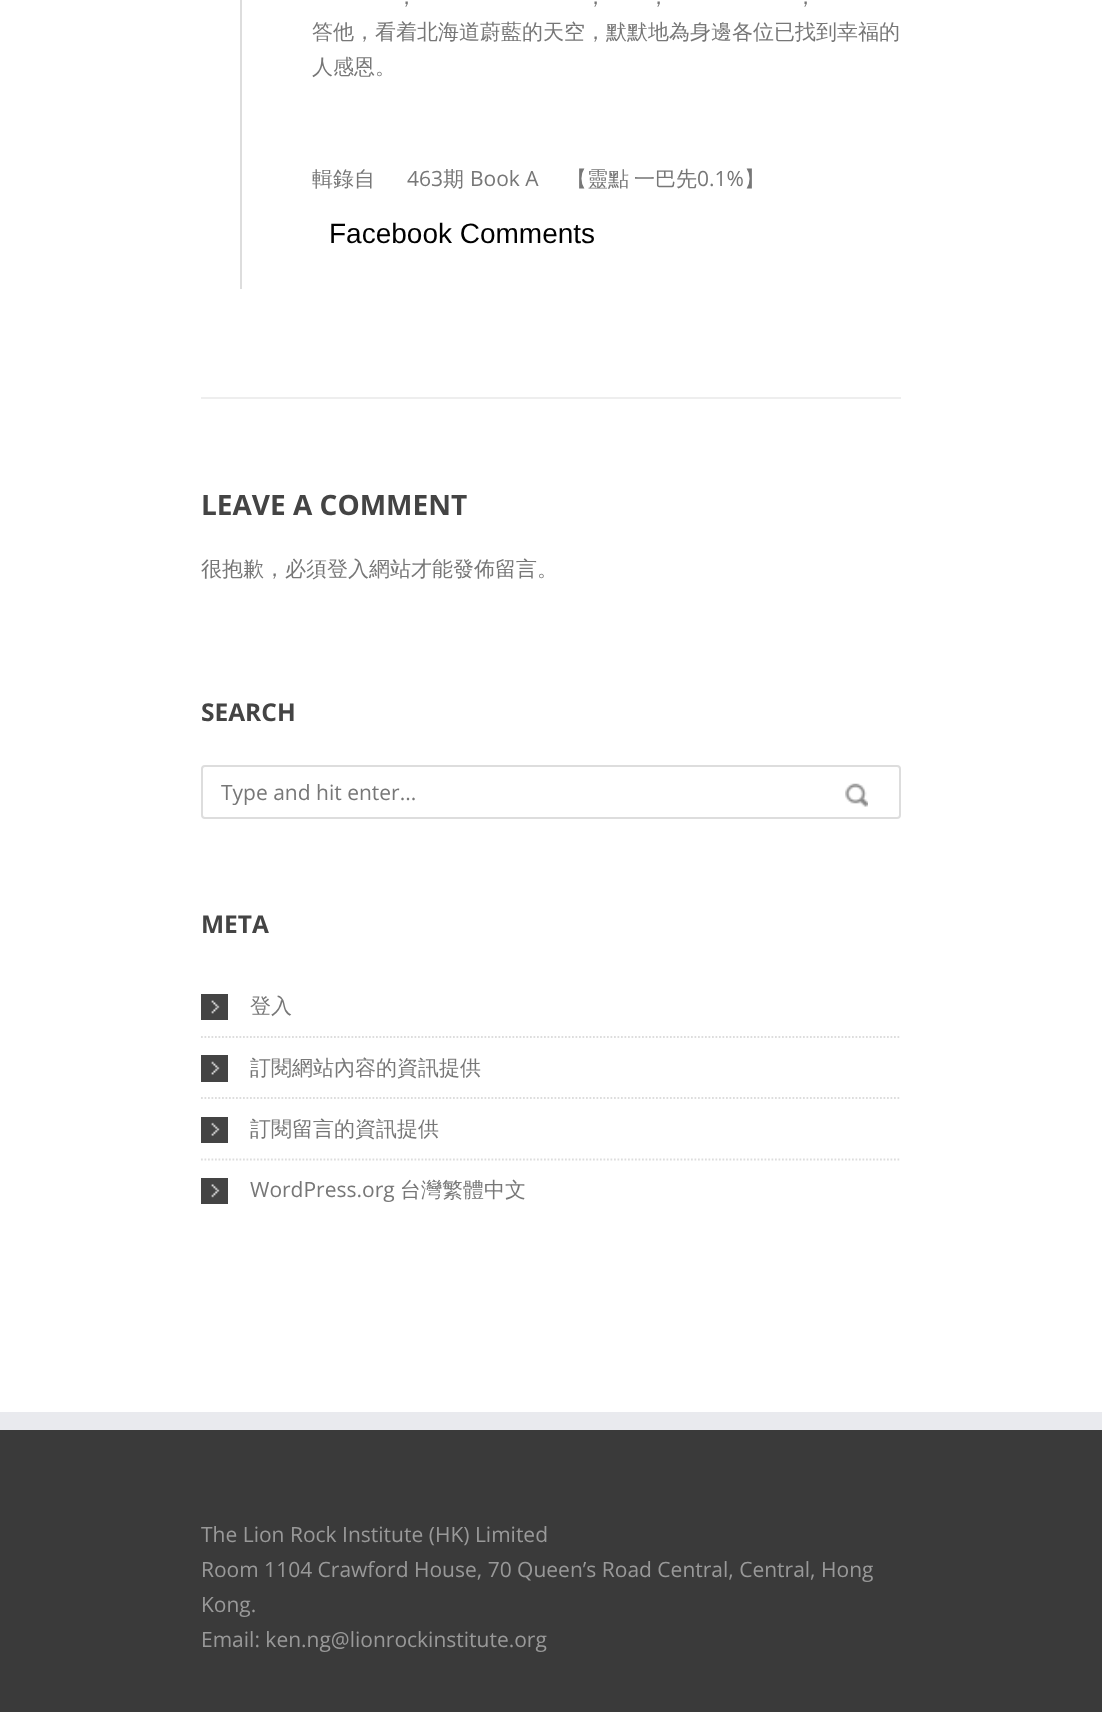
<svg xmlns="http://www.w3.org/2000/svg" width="1102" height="1712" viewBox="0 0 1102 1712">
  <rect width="100%" height="100%" fill="#fff"/>
  <path d="M201 397h700v2H201z" fill="#eee"/>
  <path d="M240 0h2v289H240z" fill="#ddd"/>
  <rect x="202" y="766" width="698" height="52" rx="3" fill="none" stroke="#ddd" stroke-width="2"/>
  <image x="845" y="783" width="23" height="24" href="img/1.png"/>
  <path d="M201 1037H901" fill="none" stroke="#ddd" stroke-width="1.8" stroke-dasharray="1.75 1.75"/>
  <path d="M201 994h27v26H201z" fill="#444"/>
  <image x="211" y="1000" width="9" height="14" href="img/2.png"/>
  <path d="M201 1098H901" fill="none" stroke="#ddd" stroke-width="1.8" stroke-dasharray="1.75 1.75"/>
  <path d="M201 1055h27v27H201z" fill="#444"/>
  <image x="211" y="1061" width="9" height="14" href="img/3.png"/>
  <path d="M201 1159.5H901" fill="none" stroke="#ddd" stroke-width="1.8" stroke-dasharray="1.75 1.75"/>
  <path d="M201 1117h27v26H201z" fill="#444"/>
  <image x="211" y="1122" width="9" height="14" href="img/4.png"/>
  <path d="M201 1178h27v26H201z" fill="#444"/>
  <image x="211" y="1184" width="9" height="14" href="img/5.png"/>
  <path d="M0 1430h1102v282H0z" fill="#3a3a3a"/>
  <path d="M0 1412h1102v18H0z" fill="#e9eaee"/>
  <g font-family="WenQuanYi Zen Hei" font-size="21" font-weight="500" fill="#777">
    <text x="396" y="4">，</text>
    <text x="585" y="4">，</text>
    <text x="648" y="4">，</text>
    <text x="795" y="4">，</text>
    <text x="312" y="39">答他，看着北海道蔚藍的天空，默默地為身邊各位已找到幸福的</text>
    <text x="312" y="74">人感恩。</text>
    <text x="312" y="186">輯錄自</text>
  </g>
  <text x="407" y="186" font-family="Open Sans" font-size="21" fill="#777">463</text>
  <text x="443" y="186" font-family="WenQuanYi Zen Hei" font-size="21" font-weight="500" fill="#777">期</text>
  <text x="470" y="186" font-family="Open Sans" font-size="21" fill="#777">Book A</text>
  <g font-family="WenQuanYi Zen Hei" font-size="21" font-weight="500" fill="#777">
    <text x="566" y="186">【靈點</text>
    <text x="634" y="186">一巴先</text>
  </g>
  <text x="697" y="186" font-family="Open Sans" font-size="21" fill="#777">0.1%</text>
  <text x="744" y="186" font-family="WenQuanYi Zen Hei" font-size="21" font-weight="500" fill="#777">】</text>
  <text x="329" y="243" font-family="Liberation Sans" font-size="28" fill="#000">Facebook Comments</text>
  <text x="201" y="515" font-family="Open Sans" font-size="28" font-weight="bold" fill="#444">LEAVE A COMMENT</text>
  <text x="201" y="576" font-family="WenQuanYi Zen Hei" font-size="21" font-weight="500" fill="#777">很抱歉，必須登入網站才能發佈留言。</text>
  <text x="201" y="721" font-family="Open Sans" font-size="24.5" font-weight="bold" fill="#444">SEARCH</text>
  <text x="221" y="800" font-family="Open Sans" font-size="21" fill="#777">Type and hit enter...</text>
  <text x="201" y="933" font-family="Open Sans" font-size="24.5" font-weight="bold" fill="#444">META</text>
  <g font-family="WenQuanYi Zen Hei" font-size="21" font-weight="500" fill="#777">
    <text x="250" y="1013">登入</text>
    <text x="250" y="1075">訂閱網站內容的資訊提供</text>
    <text x="250" y="1136">訂閱留言的資訊提供</text>
  </g>
  <text x="250" y="1197" font-family="Open Sans" font-size="21" fill="#777">WordPress.org</text>
  <text x="400" y="1197" font-family="WenQuanYi Zen Hei" font-size="21" font-weight="500" fill="#777">台灣繁體中文</text>
  <g font-family="Open Sans" font-size="21" fill="#999">
    <text x="201" y="1542">The Lion Rock Institute (HK) Limited</text>
    <text x="201" y="1577">Room 1104 Crawford House, 70 Queen’s Road Central, Central, Hong</text>
    <text x="201" y="1612">Kong.</text>
    <text x="201" y="1647">Email: ken.ng@lionrockinstitute.org</text>
  </g>
</svg>
